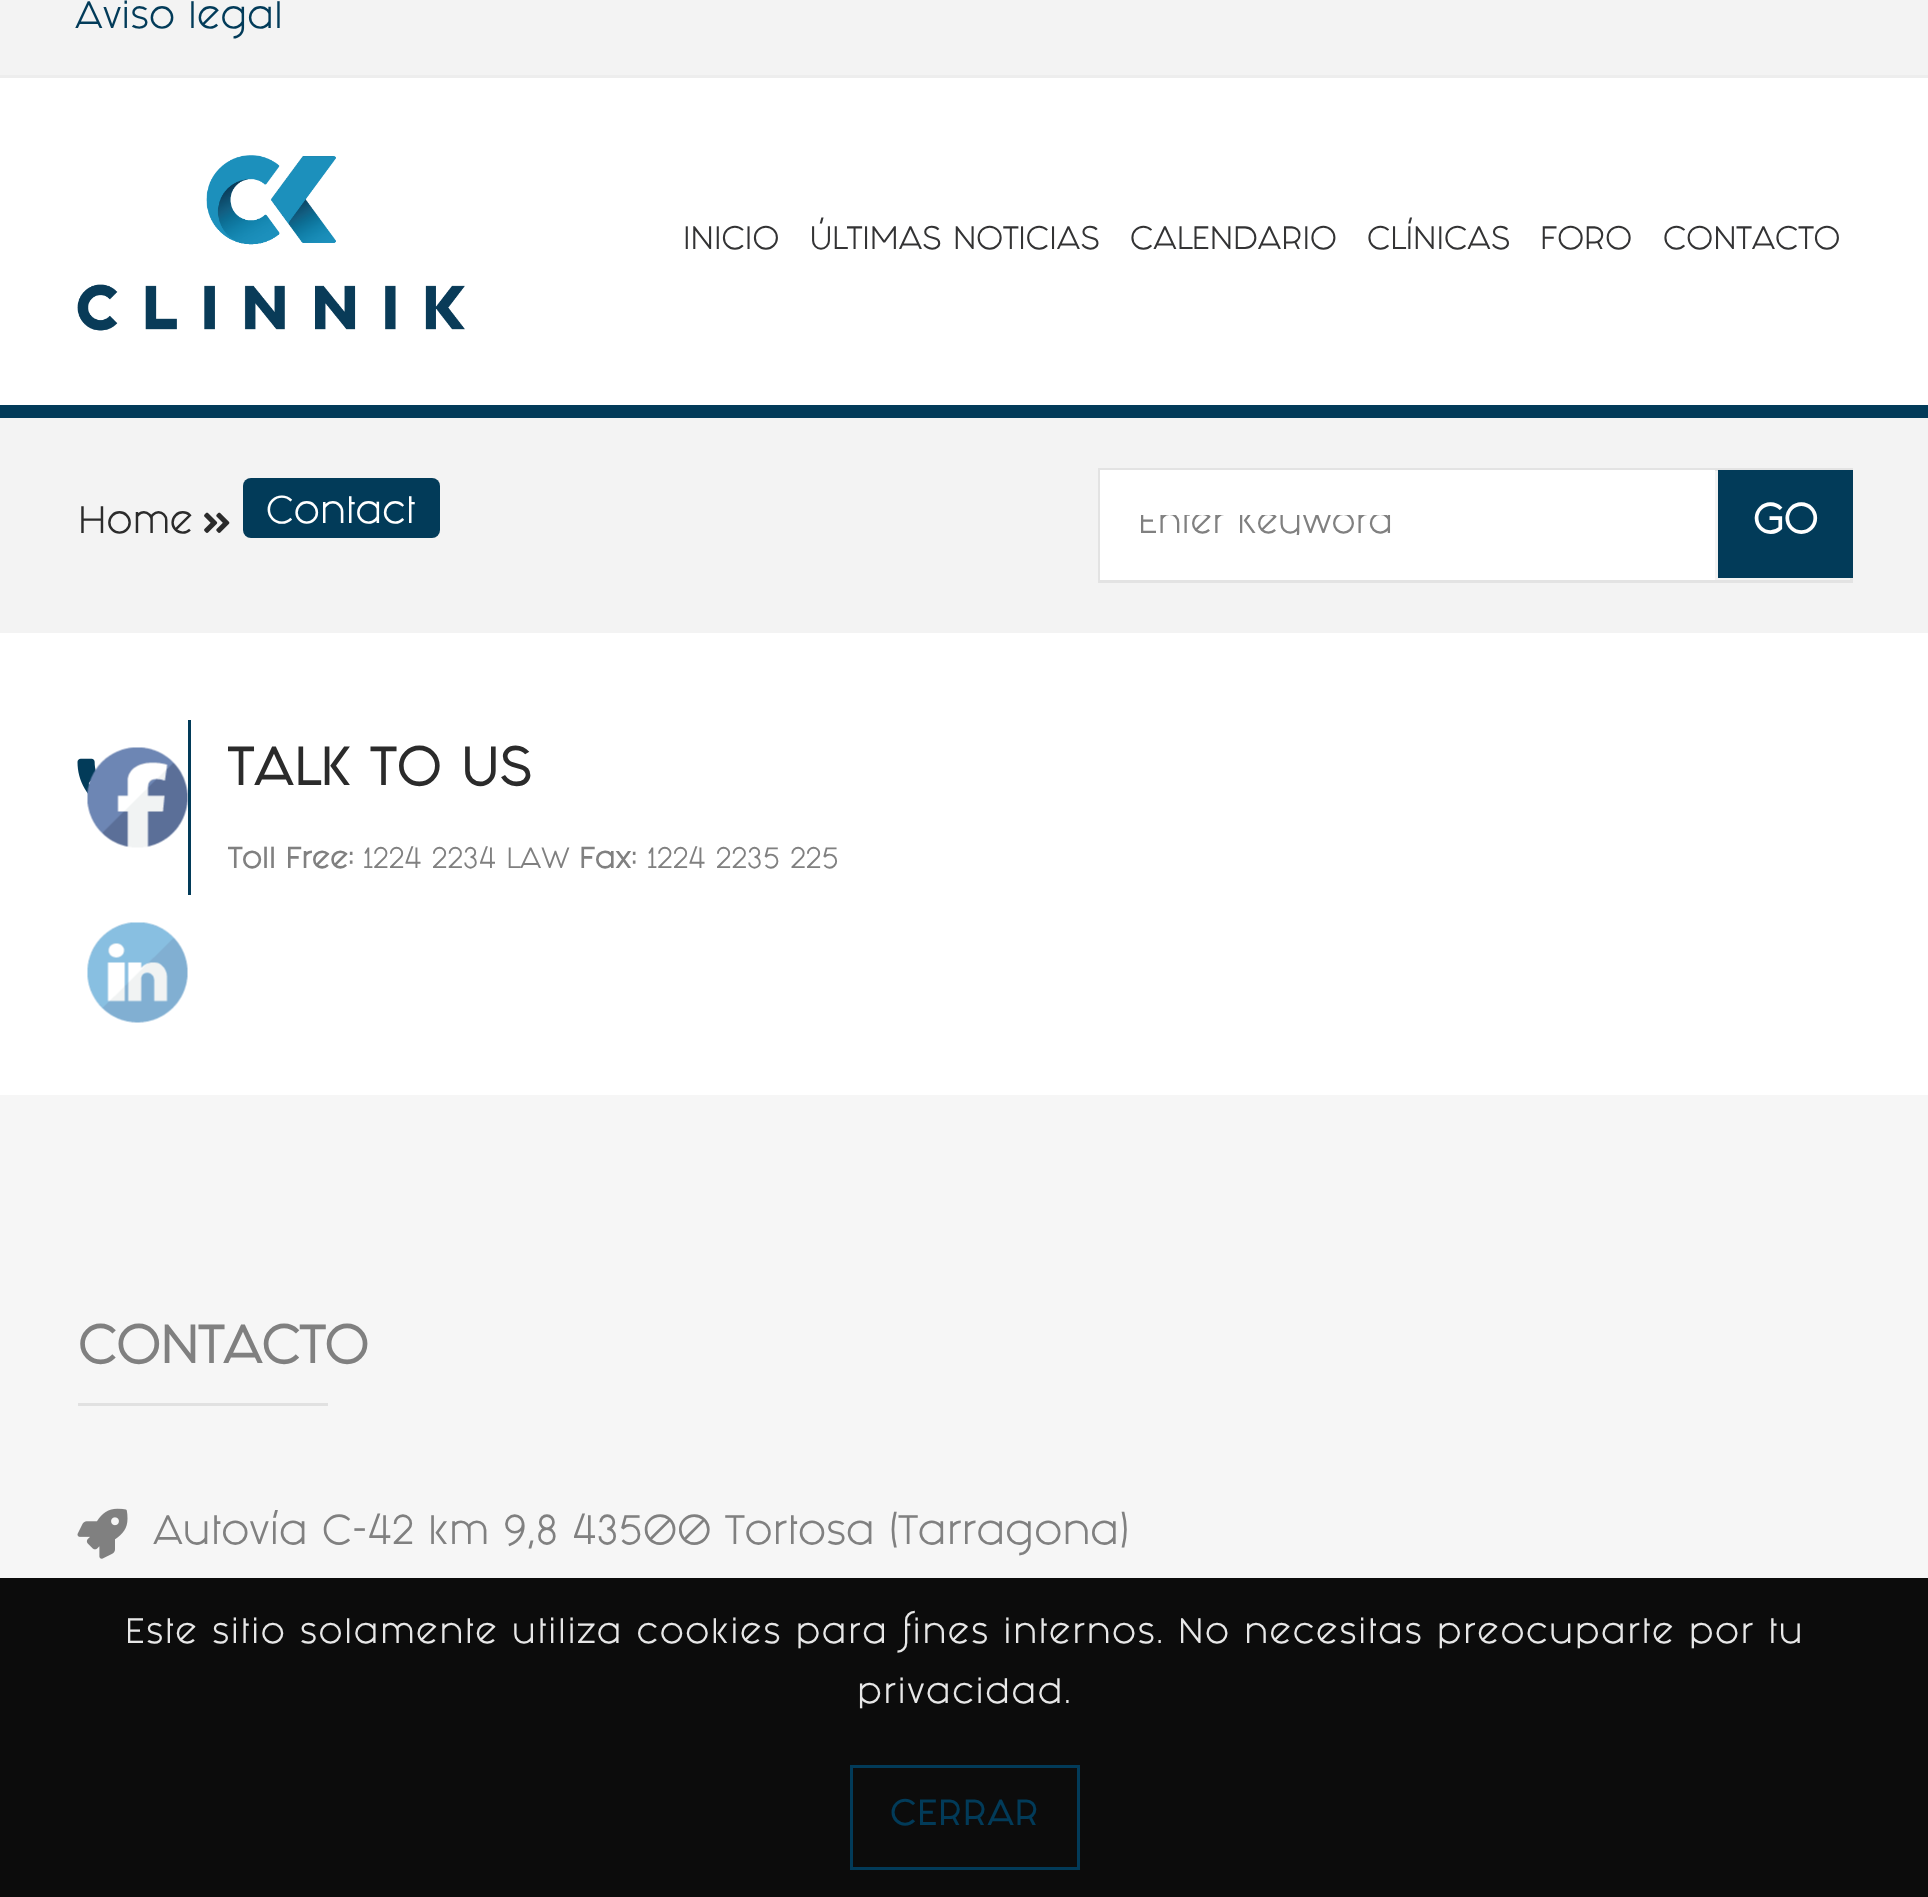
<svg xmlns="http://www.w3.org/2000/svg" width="1928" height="1897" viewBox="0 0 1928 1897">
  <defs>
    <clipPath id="clip1"><path d="M1138 515h540v20H1138z"/></clipPath>
  </defs>
  <rect width="100%" height="100%" fill="#fff"/>
  <path d="M0 0h1928v75H0z" fill="#f3f3f3"/>
  <path d="M0 75h1928v3H0z" fill="#ededed"/>
  <path d="M0 405h1928v13H0z" fill="#023b59"/>
  <image x="77" y="155" width="388" height="176" href="img/1.png"/>
  <path d="M0 418h1928v215H0z" fill="#f3f3f3"/>
  <image x="204" y="512" width="26" height="21" href="img/2.png"/>
  <rect x="243" y="478" width="197" height="60" rx="8" fill="#023b59"/>
  <path d="M1099.5 469.5h752v112H1099.5z" fill="none" stroke="#e3e3e3" stroke-width="3"/>
  <path d="M1100 470h615v110H1100z" fill="#fff"/>
  <path d="M1718 470h135v108H1718z" fill="#023b59"/>
  <path d="M188 720h3v175H188z" fill="#023b59"/>
  <image x="77" y="758" width="19" height="36" href="img/3.png"/>
  <path d="M0 1095h1928v483H0z" fill="#f6f6f6"/>
  <path d="M78 1403h250v3H78z" fill="#e1e1e1"/>
  <image x="77" y="1508" width="51" height="51" href="img/4.png"/>
  <image x="87" y="747" width="101" height="101" href="img/5.png"/>
  <image x="87" y="922" width="101" height="101" href="img/6.png"/>
  <path d="M0 1578h1928v319H0z" fill="#0c0c0c"/>
  <path d="M851.5 1766.5h227v102H851.5z" fill="none" stroke="#023b59" stroke-width="3"/>
  <text x="75" y="28" font-family="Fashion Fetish" font-size="32.5" fill="#023b59">Aviso legal</text>
  <g font-family="Fashion Fetish" font-size="27.5" fill="#333334">
    <text x="683" y="249">INICIO</text>
    <text x="810" y="249">ÚLTIMAS NOTICIAS</text>
    <text x="1130" y="249">CALENDARIO</text>
    <text x="1367" y="249">CLÍNICAS</text>
    <text x="1540" y="249">FORO</text>
    <text x="1663" y="249">CONTACTO</text>
  </g>
  <text x="78" y="533" font-family="Fashion Fetish" font-size="32.5" fill="#2b2b2b">Home</text>
  <text x="266" y="523" font-family="Fashion Fetish" font-size="32.5" fill="#fff">Contact</text>
  <g clip-path="url(#clip1)">
    <text x="1138" y="533" font-family="Fashion Fetish" font-size="30" fill="#808080">Enter Keyword</text>
  </g>
  <text x="1753" y="533" font-family="Fashion Fetish" font-size="35" font-weight="bold" fill="#fff">GO</text>
  <text x="228" y="785" font-family="Fashion Fetish" font-size="45" font-weight="bold" letter-spacing="1.5" fill="#2b2b2b">TALK TO US</text>
  <text x="228" y="868" font-family="Fashion Fetish" font-size="25" font-weight="bold" fill="#808080">Toll Free:</text>
  <text x="363" y="868" font-family="Fashion Fetish" font-size="25" fill="#808080">1224 2234 LAW</text>
  <text x="579" y="868" font-family="Fashion Fetish" font-size="25" font-weight="bold" fill="#808080">Fax:</text>
  <text x="647" y="868" font-family="Fashion Fetish" font-size="25" fill="#808080">1224 2235 225</text>
  <text x="78" y="1363" font-family="Fashion Fetish" font-size="45" font-weight="bold" fill="#808080">CONTACTO</text>
  <text x="153" y="1544" font-family="Fashion Fetish" font-size="35" fill="#808080">Autovía C-42 km 9,8 43500 Tortosa (Tarragona)</text>
  <g font-family="Fashion Fetish" font-size="30" letter-spacing="1.5" fill="#e7e7e7">
    <text x="125" y="1643">Este sitio solamente utiliza cookies para fines internos. No necesitas preocuparte por tu</text>
    <text x="857" y="1703">privacidad.</text>
  </g>
  <text x="890" y="1825" font-family="Fashion Fetish" font-size="30" font-weight="bold" letter-spacing="1.5" fill="#023b59">CERRAR</text>
</svg>
